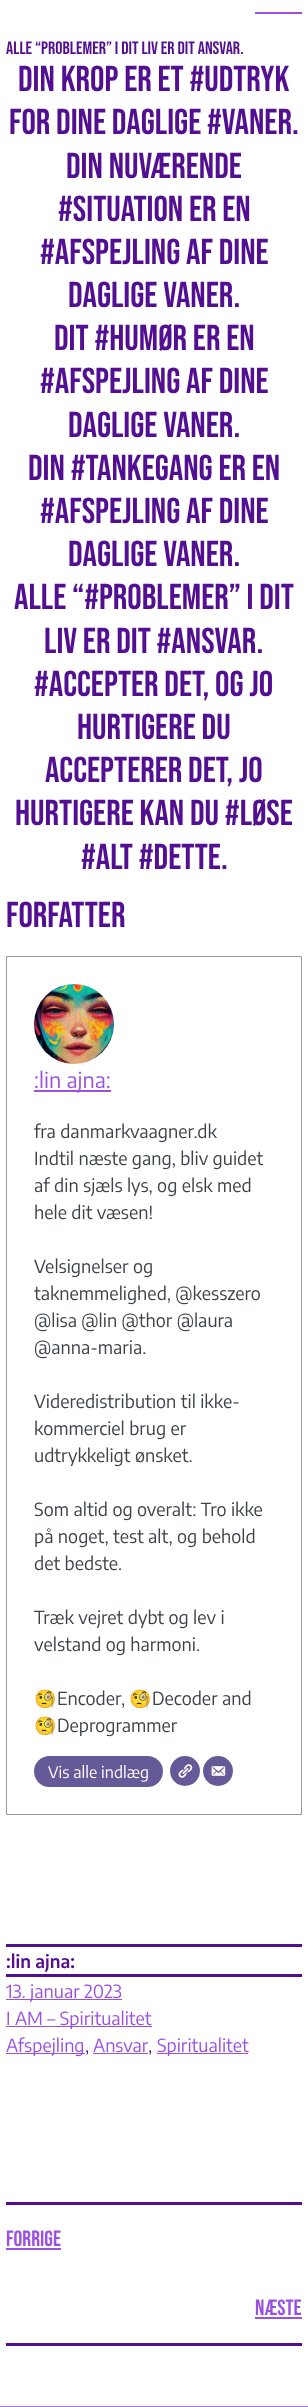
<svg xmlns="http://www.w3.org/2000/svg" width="308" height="2407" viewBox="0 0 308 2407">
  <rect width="100%" height="100%" fill="#fff"/>
  <path d="M255 12h47v2H255z" fill="#9b51e0"/>
  <path d="M6.5 956.5h295v858H6.5z" fill="none" stroke="#999"/>
  <image x="34" y="984" width="80" height="80" href="img/1.png"/>
  <path d="M34 1090h77v2H34z" fill="#9b51e0"/>
  <rect x="34" y="1756" width="129" height="31" rx="15.5" fill="#655997"/>
  <circle cx="185" cy="1771" r="15" fill="#655997"/>
  <image x="178" y="1764" width="15" height="14" href="img/2.png"/>
  <circle cx="218" cy="1771" r="15" fill="#655997"/>
  <image x="211" y="1766" width="15" height="10" href="img/3.png"/>
  <path d="M6 1944h296v3H6z" fill="#530f92"/>
  <path d="M6 1974h296v3H6z" fill="#530f92"/>
  <path d="M6 1999h116v1H6z" fill="#9b51e0"/>
  <path d="M6 2026h146v1H6z" fill="#9b51e0"/>
  <path d="M6 2053h79v1H6z" fill="#9b51e0"/>
  <path d="M93 2053h55v1H93z" fill="#9b51e0"/>
  <path d="M157 2053h91v1H157z" fill="#9b51e0"/>
  <path d="M6 2202h296v3H6z" fill="#530f92"/>
  <path d="M6 2248h55v2H6z" fill="#9b51e0"/>
  <path d="M255 2317h47v2H255z" fill="#9b51e0"/>
  <path d="M6 2343h296v3H6z" fill="#530f92"/>
  <path d="M0 2406h308v1H0z" fill="#a077f3"/>
  <text x="6" y="54" font-family="Bebas Neue" font-size="18" fill="#530f92">ALLE “problemer” i dit liv er dit ansvar.</text>
  <g font-family="Bebas Neue" font-size="36" fill="#530f92">
    <text x="18" y="91">Din krop er et #udtryk</text>
    <text x="9" y="134">for dine daglige #vaner.</text>
    <text x="66" y="178">Din nuværende</text>
    <text x="58" y="221">#situation er en</text>
    <text x="40" y="264">#afspejling af dine</text>
    <text x="68" y="307">daglige vaner.</text>
    <text x="54" y="350">Dit #humør er en</text>
    <text x="40" y="393">#afspejling af dine</text>
    <text x="68" y="437">daglige vaner.</text>
    <text x="28" y="480">Din #tankegang er en</text>
    <text x="40" y="523">#afspejling af dine</text>
    <text x="68" y="566">daglige vaner.</text>
    <text x="14" y="609">ALLE “#problemer” i dit</text>
    <text x="44" y="653">liv er dit #ansvar.</text>
    <text x="34" y="696">#Accepter det, og jo</text>
    <text x="77" y="739">hurtigere du</text>
    <text x="45" y="782">accepterer det, jo</text>
    <text x="15" y="825">hurtigere kan du #løse</text>
    <text x="81" y="869">#ALT #dette.</text>
    <text x="6" y="927">Forfatter</text>
  </g>
  <text x="34" y="1088" font-family="Encode Sans" font-size="21.5" fill="#9b51e0">:lin ajna:</text>
  <g font-family="Encode Sans" font-size="18" fill="#3c434a">
    <text x="34" y="1138">fra danmarkvaagner.dk</text>
    <text x="34" y="1165">Indtil næste gang, bliv guidet</text>
    <text x="34" y="1192">af din sjæls lys, og elsk med</text>
    <text x="34" y="1219">hele dit væsen!</text>
    <text x="34" y="1273">Velsignelser og</text>
    <text x="34" y="1300">taknemmelighed, @kesszero</text>
    <text x="34" y="1327">@lisa @lin @thor @laura</text>
    <text x="34" y="1354">@anna-maria.</text>
    <text x="34" y="1408">Videredistribution til ikke-</text>
    <text x="34" y="1435">kommerciel brug er</text>
    <text x="34" y="1462">udtrykkeligt ønsket.</text>
    <text x="34" y="1516">Som altid og overalt: Tro ikke</text>
    <text x="34" y="1543">på noget, test alt, og behold</text>
    <text x="34" y="1570">det bedste.</text>
    <text x="34" y="1624">Træk vejret dybt og lev i</text>
    <text x="34" y="1651">velstand og harmoni.</text>
  </g>
  <text x="34" y="1705" font-family="Noto Color Emoji" font-size="18" fill="#3c434a">🧐</text>
  <text x="57" y="1705" font-family="Encode Sans" font-size="18" fill="#3c434a">Encoder,</text>
  <text x="129" y="1705" font-family="Noto Color Emoji" font-size="18" fill="#3c434a">🧐</text>
  <text x="152" y="1705" font-family="Encode Sans" font-size="18" fill="#3c434a">Decoder and</text>
  <text x="34" y="1732" font-family="Noto Color Emoji" font-size="18" fill="#3c434a">🧐</text>
  <text x="57" y="1732" font-family="Encode Sans" font-size="18" fill="#3c434a">Deprogrammer</text>
  <text x="48" y="1778" font-family="Encode Sans" font-size="16" fill="#fff">Vis alle indlæg</text>
  <text x="6" y="1968" font-family="Encode Sans" font-size="18" font-weight="600" fill="#530f92">:lin ajna:</text>
  <g font-family="Encode Sans" font-size="18" fill="#9b51e0">
    <text x="6" y="1998">13. januar 2023</text>
    <text x="6" y="2025">I AM – Spiritualitet</text>
    <text x="6" y="2052">Afspejling</text>
  </g>
  <text x="85" y="2052" font-family="Encode Sans" font-size="18" fill="#530f92">,</text>
  <text x="93" y="2052" font-family="Encode Sans" font-size="18" fill="#9b51e0">Ansvar</text>
  <text x="148" y="2052" font-family="Encode Sans" font-size="18" fill="#530f92">,</text>
  <text x="157" y="2052" font-family="Encode Sans" font-size="18" fill="#9b51e0">Spiritualitet</text>
  <g font-family="Bebas Neue" font-size="22" fill="#9b51e0">
    <text x="6" y="2246">Forrige</text>
    <text x="255" y="2315">Næste</text>
  </g>
</svg>
